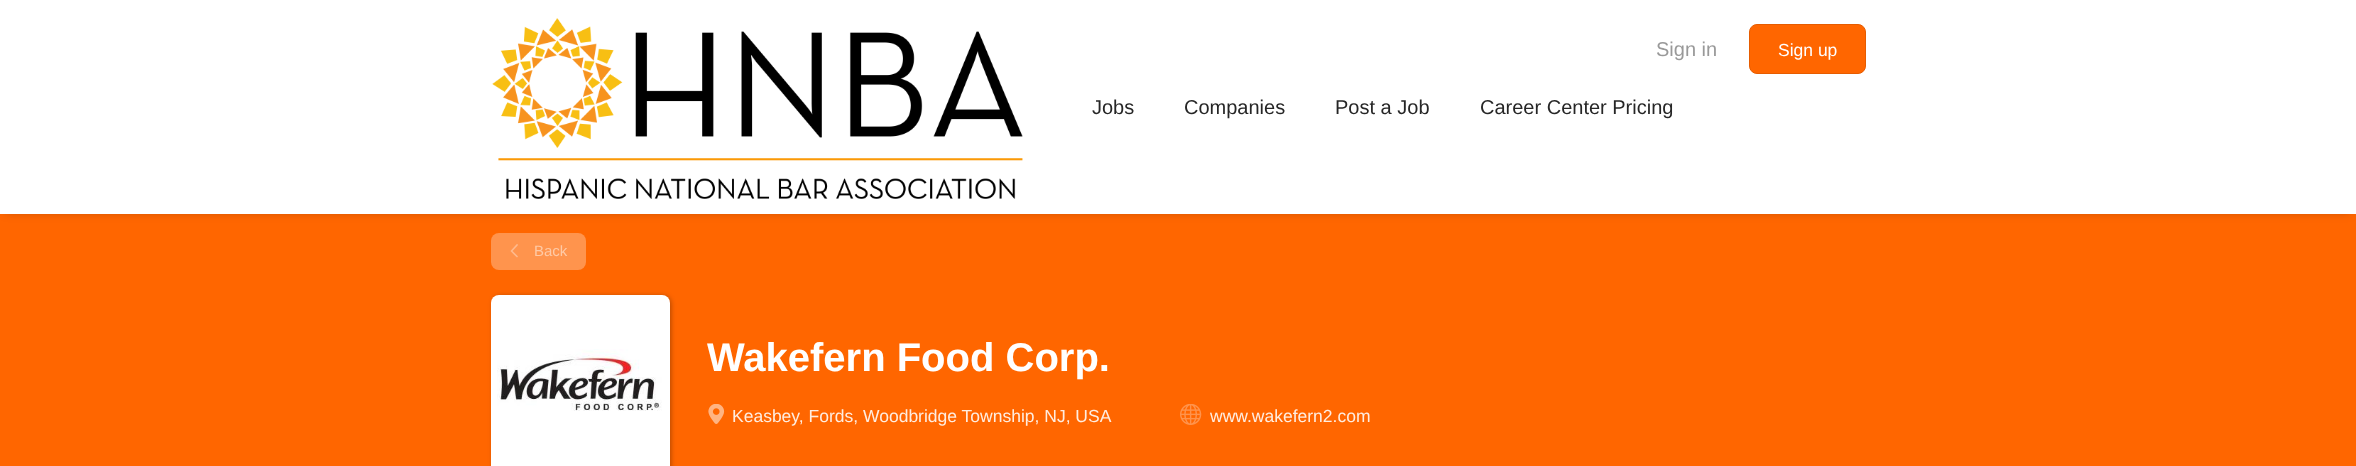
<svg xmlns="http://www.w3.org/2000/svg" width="2356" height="466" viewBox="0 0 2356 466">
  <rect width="100%" height="100%" fill="#f60"/>
  <path d="M5 8h2346v203H5z" fill="#0000004d" filter="blur(5.5px)"/>
  <path d="M0 0h2356v214H0z" fill="#fff"/>
  <image x="492" y="18" width="531" height="181" href="img/1.png"/>
  <rect x="1749.5" y="24.5" width="116" height="49" rx="7.5" fill="#f60" stroke="#e65c00"/>
  <rect x="491" y="233" width="95" height="37" rx="8" fill="#ff944d"/>
  <path d="M517 245L511.5 251L517 256.5" fill="none" stroke="#ffba8d" stroke-width="1.7" stroke-linecap="round" stroke-linejoin="round"/>
  <rect x="493" y="296" width="178" height="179" rx="8" fill="#0000004d" filter="blur(2.5px)"/>
  <rect x="491" y="295" width="179" height="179" rx="8" fill="#fff"/>
  <image x="497" y="349" width="165" height="62" href="img/2.png"/>
  <image x="708" y="404" width="17" height="20" href="img/3.png"/>
  <image x="1180" y="404" width="22" height="21" href="img/4.png"/>
  <text x="1656" y="56" font-family="Liberation Sans" font-size="20" fill="#999">Sign in</text>
  <text x="1778" y="56" font-family="Liberation Sans" font-size="17.5" fill="#fff">Sign up</text>
  <g font-family="Liberation Sans" font-size="20" fill="#262626">
    <text x="1092" y="114">Jobs</text>
    <text x="1184" y="114">Companies</text>
    <text x="1335" y="114">Post a Job</text>
    <text x="1480" y="114">Career Center Pricing</text>
  </g>
  <text x="534" y="256" font-family="Liberation Sans" font-size="15" fill="#ffcaa6">Back</text>
  <text x="707" y="371" font-family="Liberation Sans" font-size="40" font-weight="bold" fill="#fff">Wakefern Food Corp.</text>
  <g font-family="Liberation Sans" font-size="17.5" fill="#ffede0">
    <text x="732" y="422">Keasbey, Fords, Woodbridge Township, NJ, USA</text>
    <text x="1210" y="422">www.wakefern2.com</text>
  </g>
</svg>
